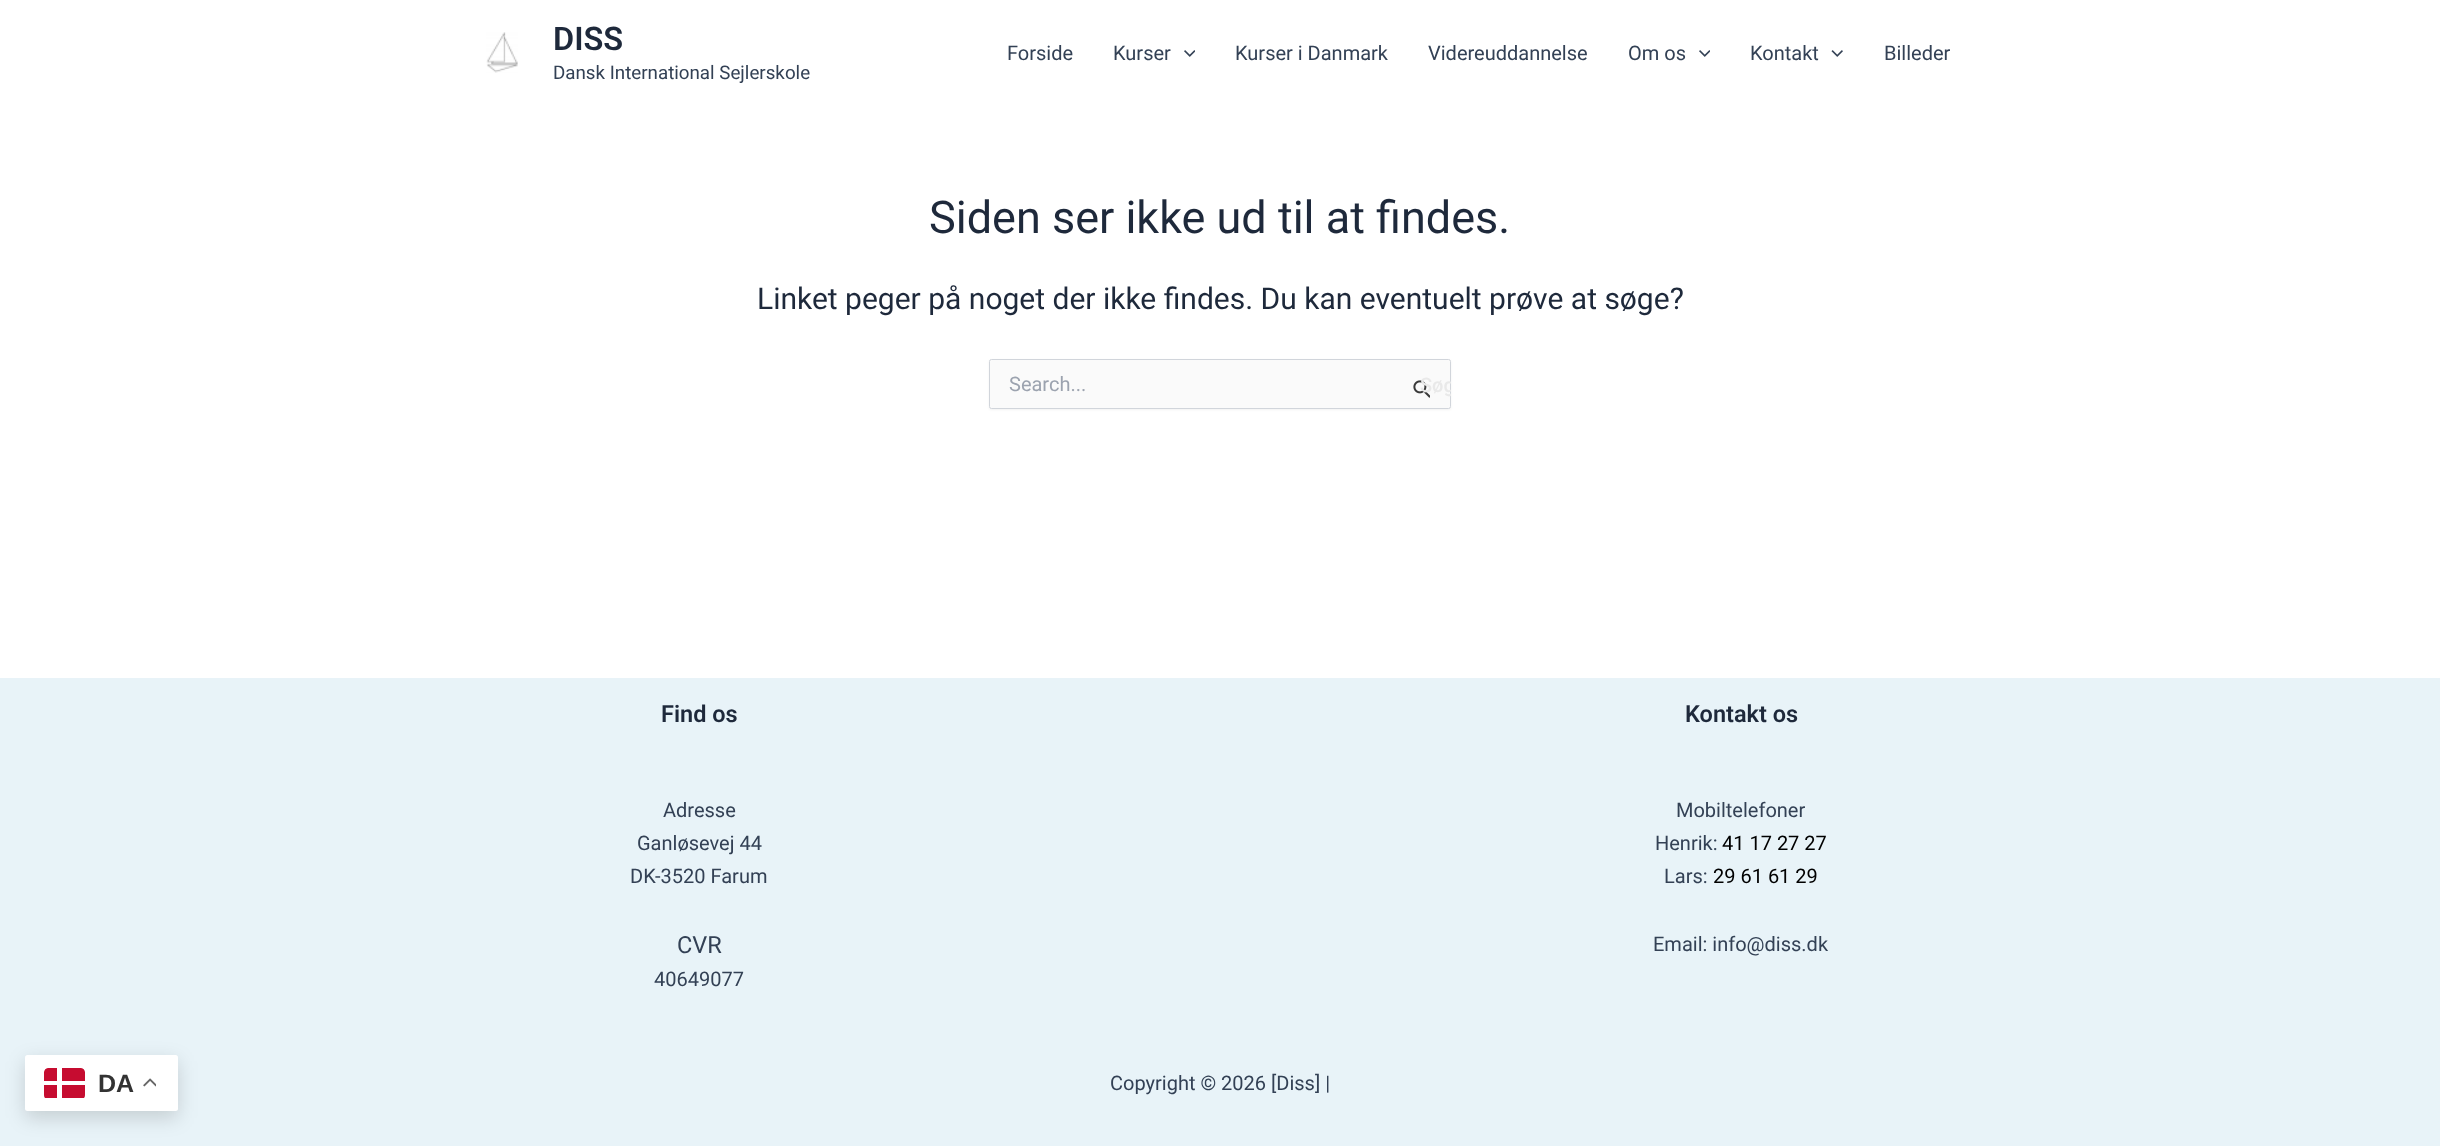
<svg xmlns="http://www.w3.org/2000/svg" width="2440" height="1146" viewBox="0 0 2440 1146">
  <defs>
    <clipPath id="clip1"><rect x="44" y="1068" width="41" height="31" rx="4"/></clipPath>
    <clipPath id="clip2"><rect x="1395" y="359" width="56" height="52" rx="2.5"/></clipPath>
  </defs>
  <rect width="100%" height="100%" fill="#fff"/>
  <path d="M0 678h2440v468H0z" fill="#e8f3f8"/>
  <rect x="25" y="1061" width="153" height="57" rx="2.5" fill="#00000026" filter="blur(9.5px)"/>
  <rect x="25" y="1055" width="153" height="56" rx="2.5" fill="#fff"/>
  <g clip-path="url(#clip1)">
    <path d="M48 1068H81C83 1068 85 1070 85 1072V1098H44V1072C44 1070 46 1068 48 1068Z" fill="#c60c30"/>
  </g>
  <path d="M57 1068h5v31H57z" fill="#fff"/>
  <path d="M44 1081h41v4H44z" fill="#fff"/>
  <image x="143" y="1078" width="13" height="9" href="img/1.png"/>
  <image x="486" y="32" width="32" height="41" href="img/2.png"/>
  <image x="1184" y="50" width="11" height="7" href="img/3.png"/>
  <image x="1699" y="50" width="11" height="7" href="img/3.png"/>
  <image x="1831" y="50" width="12" height="7" href="img/4.png"/>
  <rect x="989" y="360" width="462" height="50" rx="2.5" fill="#0000000d" filter="blur(1px)"/>
  <rect x="989.5" y="359.5" width="461" height="49" rx="2" fill="#fafafa" stroke="#d1d5db"/>
  <image x="1413" y="380" width="17" height="18" href="img/5.png"/>
  <text x="98" y="1092" font-family="Liberation Sans" font-size="25" font-weight="bold" fill="#333">DA</text>
  <text x="553" y="50" font-family="Roboto" font-size="32.5" font-weight="600" fill="#1e293b">DISS</text>
  <text x="553" y="79" font-family="Roboto" font-size="18.75" fill="#334155">Dansk International Sejlerskole</text>
  <g font-family="Roboto" font-size="20" fill="#334155">
    <text x="1007" y="60">Forside</text>
    <text x="1113" y="60">Kurser</text>
    <text x="1235" y="60">Kurser i Danmark</text>
    <text x="1428" y="60">Videreuddannelse</text>
    <text x="1628" y="60">Om os</text>
    <text x="1750" y="60">Kontakt</text>
    <text x="1884" y="60">Billeder</text>
  </g>
  <text x="929" y="233" font-family="Roboto" font-size="45" fill="#1e293b">Siden ser ikke ud til at findes.</text>
  <text x="757" y="309" font-family="Roboto" font-size="30" fill="#1e293b">Linket peger på noget der ikke findes. Du kan eventuelt prøve at søge?</text>
  <text x="1009" y="391" font-family="Roboto" font-size="20" fill="#9ca3af">Search...</text>
  <g clip-path="url(#clip2)">
    <text x="1420" y="392" font-family="Roboto" font-size="20" font-weight="500" fill="#e9e9e9">Søg</text>
  </g>
  <text x="661" y="722" font-family="Roboto" font-size="23.5" font-weight="600" fill="#1e293b">Find os</text>
  <g font-family="Roboto" font-size="20" fill="#334155">
    <text x="663" y="817">Adresse</text>
    <text x="637" y="850">Ganløsevej 44</text>
    <text x="630" y="883">DK-3520 Farum</text>
  </g>
  <text x="677" y="953" font-family="Roboto" font-size="23.5" fill="#334155">CVR</text>
  <text x="654" y="986" font-family="Roboto" font-size="20" fill="#334155">40649077</text>
  <text x="1685" y="722" font-family="Roboto" font-size="23.5" font-weight="600" fill="#1e293b">Kontakt os</text>
  <g font-family="Roboto" font-size="20" fill="#334155">
    <text x="1676" y="817">Mobiltelefoner</text>
    <text x="1655" y="850">Henrik:</text>
  </g>
  <text x="1722" y="850" font-family="Roboto" font-size="20" fill="#000">41 17 27 27</text>
  <text x="1664" y="883" font-family="Roboto" font-size="20" fill="#334155">Lars:</text>
  <text x="1713" y="883" font-family="Roboto" font-size="20" fill="#000">29 61 61 29</text>
  <g font-family="Roboto" font-size="20" fill="#334155">
    <text x="1653" y="951">Email: info@diss.dk</text>
    <text x="1110" y="1090">Copyright © 2026 [Diss] |</text>
  </g>
</svg>
